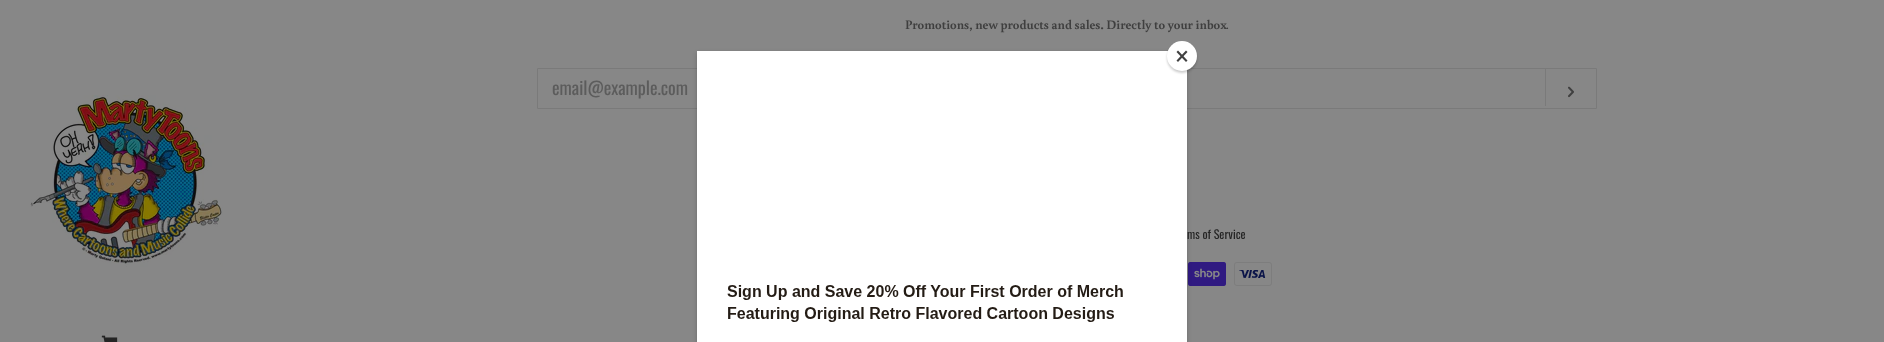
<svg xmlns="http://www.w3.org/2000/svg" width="1884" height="342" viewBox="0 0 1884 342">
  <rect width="100%" height="100%" fill="#878787"/>
  <path d="M537.5 68.5h1059v40H537.5z" fill="none" stroke="#7a7a7a"/>
  <path d="M1545 69h1v37H1545z" fill="#7a7a7a"/>
  <image x="1568" y="86" width="6" height="12" href="img/1.png"/>
  <image x="1188" y="262" width="38" height="24" href="img/2.png"/>
  <image x="1234" y="262" width="38" height="24" href="img/3.png"/>
  <image x="30" y="95" width="193" height="172" href="img/4.png"/>
  <image x="101" y="335" width="17" height="7" href="img/5.png"/>
  <path d="M697 53h490v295H697z" fill="#00000033" filter="blur(2px)"/>
  <image x="697" y="51" width="490" height="291" href="img/6.png"/>
  <rect x="1167" y="43" width="30" height="30" rx="15" fill="#00000033" filter="blur(1px)"/>
  <circle cx="1182" cy="56" r="15" fill="#fff"/>
  <path d="M1186 50.5L1187.5 52L1178 62L1176.5 60.5Z" fill="#414141"/>
  <path d="M1176.5 52L1178 50.5L1187.5 60.5L1186 62Z" fill="#414141"/>
  <text x="905" y="29" font-family="Buenard" font-size="13" font-weight="bold" fill="#3f3f3f">Promotions, new products and sales. Directly to your inbox</text>
  <text x="1226" y="29" font-family="Buenard" font-size="13" fill="#3f3f3f">.</text>
  <text x="552" y="95" font-family="Oswald" font-size="18" fill="#5c5c5c">email@example.com</text>
  <text x="1187" y="239" font-family="Oswald" font-size="12" fill="#242424">ms of Service</text>
</svg>
